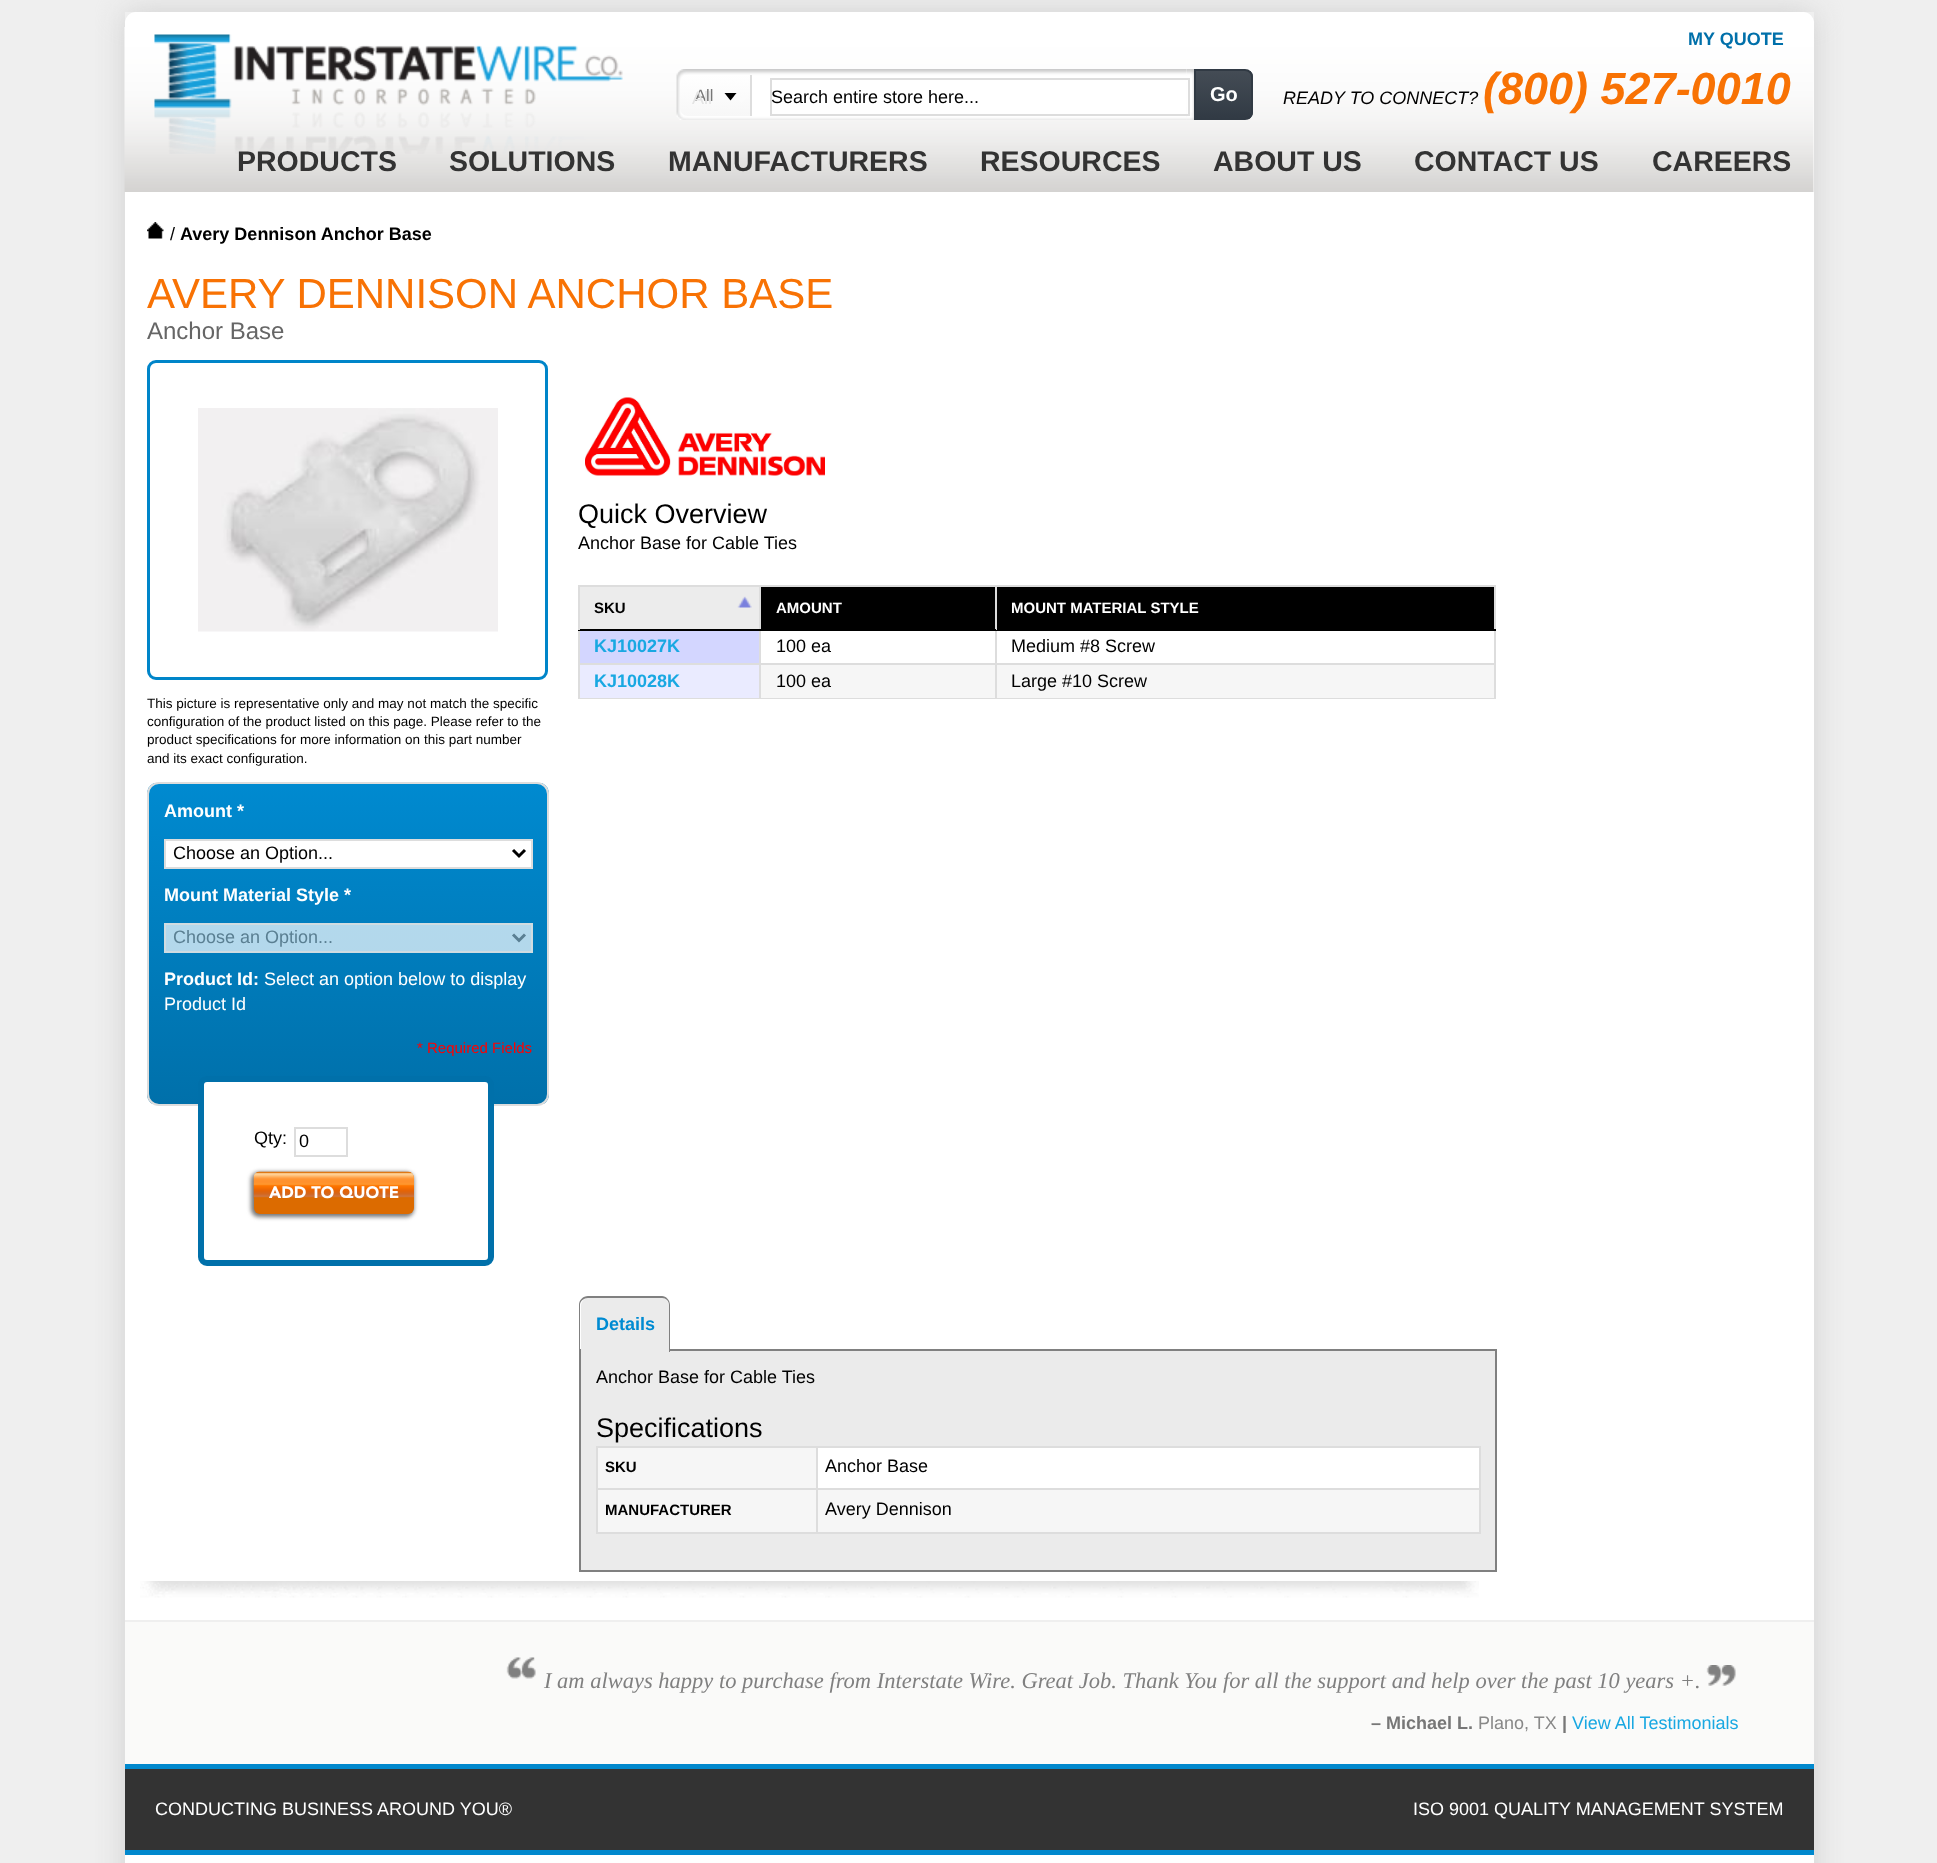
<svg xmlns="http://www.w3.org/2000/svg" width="1937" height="1863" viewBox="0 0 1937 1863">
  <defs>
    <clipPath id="clip1"><path d="M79 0H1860V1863H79ZM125 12H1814V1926H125Z" clip-rule="evenodd"/></clipPath>
    <linearGradient id="g1" gradientUnits="userSpaceOnUse" x1="715" y1="75" x2="715" y2="116"><stop offset="0" stop-color="#fff"/><stop offset="1" stop-color="#f7f7f7"/></linearGradient>
    <clipPath id="clip2"><path d="M1194 69H1245C1249.5 69 1253 72.5 1253 77V112C1253 116.5 1249.5 120 1245 120H1194Z"/></clipPath>
    <linearGradient id="g2" gradientUnits="userSpaceOnUse" x1="1223" y1="71" x2="1223" y2="119"><stop offset="0" stop-color="#444c55"/><stop offset="1" stop-color="#313a44"/></linearGradient>
    <clipPath id="clip3"><rect x="147" y="782" width="402" height="324" rx="12"/></clipPath>
    <linearGradient id="g3" gradientUnits="userSpaceOnUse" x1="348" y1="783" x2="348" y2="1104"><stop offset="0" stop-color="#008ad0"/><stop offset="1" stop-color="#0070aa"/></linearGradient>
    <linearGradient id="g4" gradientUnits="userSpaceOnUse" x1="348" y1="783" x2="348" y2="1104"><stop offset="0" stop-color="#b3dcf1"/><stop offset="1" stop-color="#b3d4e6"/></linearGradient>
  </defs>
  <rect width="100%" height="100%" fill="#efefef"/>
  <g clip-path="url(#clip1)">
    <path d="M125 12h1689v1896H125z" fill="#cfcfcf" filter="blur(15px)"/>
  </g>
  <rect x="125" y="12" width="1689" height="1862" rx="11" fill="#fff"/>
  <image x="124" y="27" width="1690" height="165" href="img/1.png"/>
  <image x="154" y="34" width="469" height="120" href="img/2.png"/>
  <image x="1186" y="69" width="8" height="51" href="img/4.png"/>
  <image x="676" y="69" width="511" height="51" href="img/3.png"/>
  <path d="M688 75H752V116H688C683.5 116 680 112.5 680 108V83C680 78.5 683.5 75 688 75Z" fill="url(#g1)"/>
  <path d="M750 75h2v41H750z" fill="#ddd"/>
  <path d="M724.5 93H736.5L730.5 100.5Z" fill="#000"/>
  <path d="M735.5 95L741.5 101L747.5 95" fill="none" stroke="#fbfbfb" stroke-width="3"/>
  <path d="M771 79h418v36H771z" fill="none" stroke="#ddd" stroke-width="2"/>
  <g clip-path="url(#clip2)">
    <path d="M1196 71h57v48H1196z" fill="url(#g2)"/>
  </g>
  <path d="M1195 70H1245C1249 70 1252 73 1252 77V112C1252 116 1249 119 1245 119H1195Z" fill="none" stroke="#313a44" stroke-width="2"/>
  <image x="147" y="222" width="17" height="17" href="img/5.png"/>
  <image x="140" y="1581" width="1339" height="17" href="img/6.png"/>
  <image x="585" y="397" width="240" height="79" href="img/7.png"/>
  <path d="M580 587h179v42H580z" fill="#ececec"/>
  <image x="737" y="596" width="15" height="12" href="img/8.png"/>
  <path d="M995 585h501v2H995z" fill="#ddd"/>
  <path d="M995 663h501v2H995z" fill="#ddd"/>
  <path d="M1494 629h2v70H1494z" fill="#ddd"/>
  <path d="M1494 585h2v45H1494z" fill="#ddd"/>
  <path d="M761 665h733v33H761z" fill="#f6f6f6"/>
  <path d="M995 698h501v1H995z" fill="#ddd"/>
  <path d="M995 663h2v36H995z" fill="#ddd"/>
  <path d="M759 663h237v2H759z" fill="#ddd"/>
  <path d="M995 629h2v36H995z" fill="#ddd"/>
  <path d="M995 629h501v2H995z" fill="#000"/>
  <path d="M995 585h2v45H995z" fill="#ddd"/>
  <path d="M759 585h237v2H759z" fill="#ddd"/>
  <path d="M759 698h237v1H759z" fill="#ddd"/>
  <path d="M759 663h2v36H759z" fill="#ddd"/>
  <path d="M578 663h183v2H578z" fill="#ddd"/>
  <path d="M759 629h2v36H759z" fill="#ddd"/>
  <path d="M759 629h237v2H759z" fill="#000"/>
  <path d="M759 585h2v45H759z" fill="#ddd"/>
  <path d="M578 585h183v2H578z" fill="#ddd"/>
  <path d="M578 698h183v1H578z" fill="#ddd"/>
  <path d="M578 629h2v70H578z" fill="#ddd"/>
  <path d="M578 629h183v2H578z" fill="#000"/>
  <path d="M578 585h2v45H578z" fill="#ddd"/>
  <path d="M761 587h234v42H761z" fill="#000"/>
  <path d="M997 587h497v42H997z" fill="#000"/>
  <path d="M580 631h179v32H580z" fill="#d3d6ff"/>
  <path d="M580 665h179v33H580z" fill="#eaebff"/>
  <rect x="148.5" y="361.5" width="398" height="317" rx="7.5" fill="none" stroke="#0085c9" stroke-width="3"/>
  <image x="198" y="408" width="300" height="224" href="img/9.png"/>
  <g clip-path="url(#clip3)">
    <path d="M147 783h402v321H147z" fill="url(#g3)"/>
  </g>
  <path d="M166 925h365v26H166z" fill="url(#g4)"/>
  <rect x="148" y="783" width="400" height="322" rx="11" fill="none" stroke="#ddd" stroke-width="2"/>
  <path d="M165 840h367v28H165z" fill="#fff" stroke="#ddd" stroke-width="2"/>
  <path d="M513 850L519 856L525 850" fill="none" stroke="#000" stroke-width="3"/>
  <path d="M165 924h367v28H165z" fill="none" stroke="#d0dce1" stroke-width="2"/>
  <path d="M513 934.5L519 940.5L525 934.5" fill="none" stroke="#5a7f93" stroke-width="3"/>
  <rect x="201" y="1079" width="290" height="184" rx="6" fill="#fff" stroke="#0070aa" stroke-width="6"/>
  <path d="M295 1128h52v28H295z" fill="none" stroke="#ddd" stroke-width="2"/>
  <rect x="251" y="1172" width="163" height="45" rx="8" fill="#777" filter="blur(2px)"/>
  <rect x="254" y="1172" width="160" height="42" rx="6" fill="#dc6b00"/>
  <image x="253" y="1171" width="161" height="28" href="img/10.png"/>
  <path d="M580 1350h916v221H580z" fill="#ebebeb" stroke="#808080" stroke-width="2"/>
  <path d="M589 1298H661C665.5 1298 669 1301.5 669 1306V1352H581V1306C581 1301.5 584.5 1298 589 1298Z" fill="#ebebeb"/>
  <path d="M588 1296H662C666 1296 670 1300 670 1305V1352H579V1305C579 1300 583 1296 588 1296ZM588 1298H662C666 1298 669 1301 669 1305V1352H580V1305C580 1301 584 1298 588 1298Z" fill="#808080" fill-rule="evenodd"/>
  <path d="M818 1448h661v40H818z" fill="#fff"/>
  <path d="M598 1448h218v40H598z" fill="#f6f6f6"/>
  <path d="M816 1446h665v2H816z" fill="#ddd"/>
  <path d="M816 1488h665v2H816z" fill="#ddd"/>
  <path d="M598 1490h881v42H598z" fill="#f6f6f6"/>
  <path d="M1479 1488h2v45H1479z" fill="#ddd"/>
  <path d="M816 1532h665v2H816z" fill="#ddd"/>
  <path d="M816 1488h2v45H816z" fill="#ddd"/>
  <path d="M596 1488h222v2H596z" fill="#ddd"/>
  <path d="M816 1446h2v44H816z" fill="#ddd"/>
  <path d="M596 1446h222v2H596z" fill="#ddd"/>
  <path d="M596 1532h222v2H596z" fill="#ddd"/>
  <path d="M596 1488h2v45H596z" fill="#ddd"/>
  <path d="M596 1446h2v44H596z" fill="#ddd"/>
  <path d="M1479 1446h2v44H1479z" fill="#ddd"/>
  <path d="M125 1622h1689v142H125z" fill="#fafaf9"/>
  <path d="M125 1620h1689v2H125z" fill="#efefef"/>
  <image x="506" y="1657" width="30" height="22" href="img/11.png"/>
  <image x="1706" y="1665" width="30" height="21" href="img/12.png"/>
  <path d="M125 1769h1689v81H125z" fill="#333"/>
  <path d="M125 1764h1689v5H125z" fill="#0088cd"/>
  <path d="M125 1850h1689v5H125z" fill="#0088cd"/>
  <text x="1688" y="45" font-family="Liberation Sans" font-size="18" font-weight="bold" fill="#0070aa">MY QUOTE</text>
  <text x="1283" y="104" font-family="Liberation Sans" font-size="18" font-style="italic" fill="#000">READY TO CONNECT?</text>
  <text x="1483" y="104" font-family="Liberation Sans" font-size="45" font-weight="bold" font-style="italic" fill="#f87204">(800) 527-0010</text>
  <g font-family="Liberation Sans" font-size="28.5" font-weight="bold" fill="#333">
    <text x="237" y="171">PRODUCTS</text>
    <text x="449" y="171">SOLUTIONS</text>
    <text x="668" y="171">MANUFACTURERS</text>
    <text x="980" y="171">RESOURCES</text>
    <text x="1213" y="171">ABOUT US</text>
    <text x="1414" y="171">CONTACT US</text>
    <text x="1652" y="171">CAREERS</text>
  </g>
  <text x="695" y="101" font-family="Liberation Sans" font-size="16.5" fill="#777">All</text>
  <text x="692" y="104" font-family="Liberation Sans" font-size="18" fill="#e4e4e4">All</text>
  <text x="771" y="103" font-family="Liberation Sans" font-size="18" fill="#000">Search entire store here...</text>
  <text x="1210" y="101" font-family="Liberation Sans" font-size="20" font-weight="bold" fill="#fff">Go</text>
  <text x="170" y="240" font-family="Liberation Sans" font-size="18" fill="#000">/</text>
  <text x="180" y="240" font-family="Liberation Sans" font-size="18" font-weight="bold" fill="#000">Avery Dennison Anchor Base</text>
  <text x="147" y="308" font-family="Liberation Sans" font-size="42" fill="#f87204">AVERY DENNISON ANCHOR BASE</text>
  <text x="147" y="339" font-family="Liberation Sans" font-size="24" fill="#666">Anchor Base</text>
  <text x="578" y="523" font-family="Liberation Sans" font-size="27" fill="#000">Quick Overview</text>
  <text x="578" y="549" font-family="Liberation Sans" font-size="18" fill="#000">Anchor Base for Cable Ties</text>
  <text x="594" y="613" font-family="Liberation Sans" font-size="15" font-weight="bold" fill="#000">SKU</text>
  <g font-family="Liberation Sans" font-size="15" font-weight="bold" fill="#fff">
    <text x="776" y="613">AMOUNT</text>
    <text x="1011" y="613">MOUNT MATERIAL STYLE</text>
  </g>
  <text x="594" y="652" font-family="Liberation Sans" font-size="18" font-weight="bold" fill="#19a8e2">KJ10027K</text>
  <g font-family="Liberation Sans" font-size="18" fill="#000">
    <text x="776" y="652">100 ea</text>
    <text x="1011" y="652">Medium #8 Screw</text>
  </g>
  <text x="594" y="687" font-family="Liberation Sans" font-size="18" font-weight="bold" fill="#19a8e2">KJ10028K</text>
  <g font-family="Liberation Sans" font-size="18" fill="#000">
    <text x="776" y="687">100 ea</text>
    <text x="1011" y="687">Large #10 Screw</text>
  </g>
  <g font-family="Liberation Sans" font-size="13.5" fill="#000">
    <text x="147" y="708">This picture is representative only and may not match the specific</text>
    <text x="147" y="726">configuration of the product listed on this page. Please refer to the</text>
    <text x="147" y="744">product specifications for more information on this part number</text>
    <text x="147" y="763">and its exact configuration.</text>
  </g>
  <text x="164" y="817" font-family="Liberation Sans" font-size="18" font-weight="bold" fill="#fff">Amount *</text>
  <text x="173" y="859" font-family="Liberation Sans" font-size="18" fill="#000">Choose an Option...</text>
  <text x="164" y="901" font-family="Liberation Sans" font-size="18" font-weight="bold" fill="#fff">Mount Material Style *</text>
  <text x="173" y="943" font-family="Liberation Sans" font-size="18" fill="#5a7f92">Choose an Option...</text>
  <text x="164" y="985" font-family="Liberation Sans" font-size="18" font-weight="bold" fill="#fff">Product Id:</text>
  <g font-family="Liberation Sans" font-size="18" fill="#fff">
    <text x="264" y="985">Select an option below to display</text>
    <text x="164" y="1010">Product Id</text>
  </g>
  <text x="417" y="1053" font-family="Liberation Sans" font-size="15" fill="#f00">* Required Fields</text>
  <g font-family="Liberation Sans" font-size="18" fill="#000">
    <text x="254" y="1144">Qty:</text>
    <text x="299" y="1147">0</text>
  </g>
  <text x="269" y="1198" font-family="Avenir" font-size="16.5" font-weight="900" fill="#fff">ADD TO QUOTE</text>
  <text x="596" y="1330" font-family="Liberation Sans" font-size="18" font-weight="bold" fill="#008bd2">Details</text>
  <text x="596" y="1383" font-family="Liberation Sans" font-size="18" fill="#000">Anchor Base for Cable Ties</text>
  <text x="596" y="1437" font-family="Liberation Sans" font-size="27" fill="#000">Specifications</text>
  <text x="605" y="1472" font-family="Liberation Sans" font-size="15" font-weight="bold" fill="#000">SKU</text>
  <text x="825" y="1472" font-family="Liberation Sans" font-size="18" fill="#000">Anchor Base</text>
  <text x="605" y="1515" font-family="Liberation Sans" font-size="15" font-weight="bold" fill="#000">MANUFACTURER</text>
  <text x="825" y="1515" font-family="Liberation Sans" font-size="18" fill="#000">Avery Dennison</text>
  <text x="544" y="1688" font-family="Liberation Serif" font-size="22.5" font-style="italic" fill="#808080">I am always happy to purchase from Interstate Wire. Great Job. Thank You for all the support and help over the past 10 years +.</text>
  <text x="1371" y="1729" font-family="Liberation Sans" font-size="18" font-weight="bold" fill="#777">– Michael L.</text>
  <text x="1478" y="1729" font-family="Liberation Sans" font-size="18" fill="#888">Plano, TX</text>
  <text x="1562" y="1729" font-family="Liberation Sans" font-size="18" font-weight="bold" fill="#777">|</text>
  <text x="1572" y="1729" font-family="Liberation Sans" font-size="18" fill="#19a8e2">View All Testimonials</text>
  <g font-family="Liberation Sans" font-size="18" fill="#fff">
    <text x="155" y="1815">CONDUCTING BUSINESS AROUND YOU®</text>
    <text x="1413" y="1815">ISO 9001 QUALITY MANAGEMENT SYSTEM</text>
  </g>
</svg>
